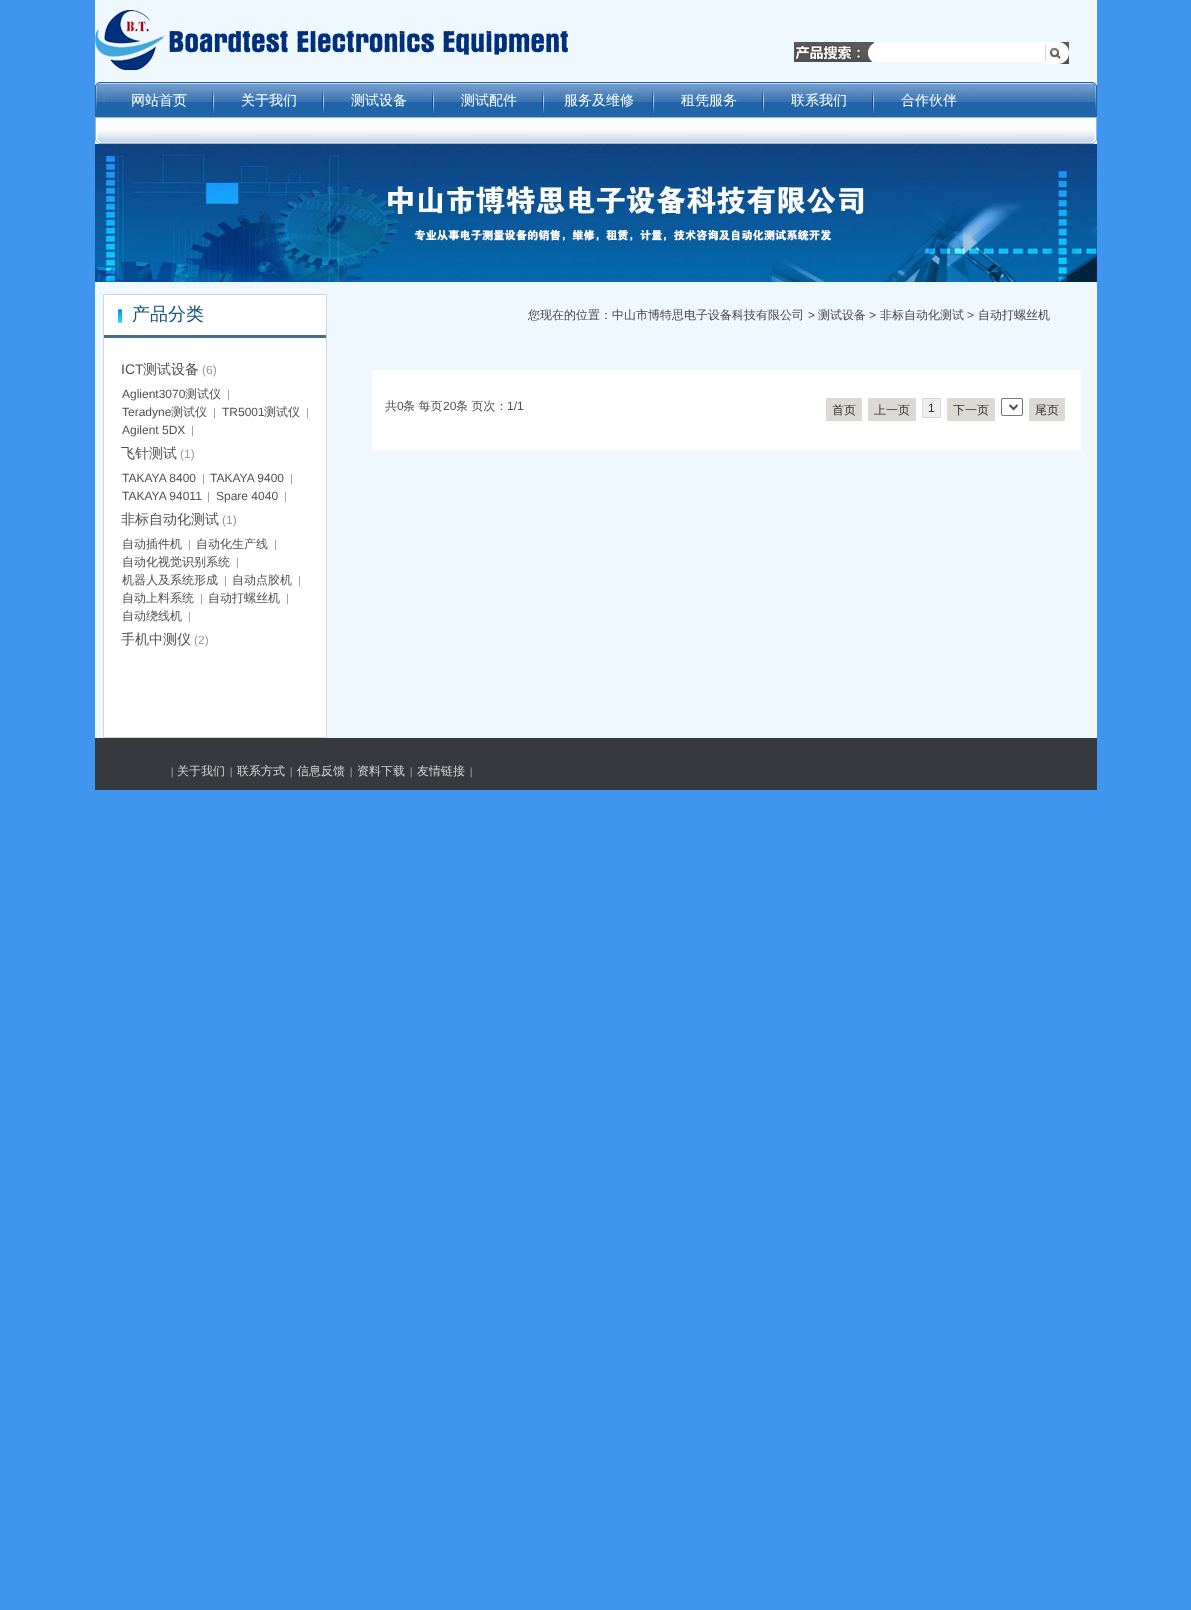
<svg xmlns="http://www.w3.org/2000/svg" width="1191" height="1610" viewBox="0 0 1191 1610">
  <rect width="100%" height="100%" fill="#4096ee"/>
  <path d="M95 0h1002v738H95z" fill="#f0f8ff"/>
  <image x="95" y="10" width="473" height="60" href="img/1.png"/>
  <image x="794" y="42" width="80" height="20" href="img/2.png"/>
  <path d="M874 42h171v20H874z" fill="#fff"/>
  <image x="1045" y="42" width="24" height="22" href="img/3.png"/>
  <image x="95" y="82" width="6" height="36" href="img/4.png"/>
  <image x="101" y="82" width="990" height="36" href="img/5.png"/>
  <image x="104" y="96" width="1" height="12" href="img/6.png"/>
  <image x="212" y="90" width="3" height="24" href="img/7.png"/>
  <image x="322" y="90" width="3" height="24" href="img/7.png"/>
  <image x="432" y="90" width="3" height="24" href="img/7.png"/>
  <image x="542" y="90" width="3" height="24" href="img/7.png"/>
  <image x="652" y="90" width="3" height="24" href="img/7.png"/>
  <image x="762" y="90" width="3" height="24" href="img/7.png"/>
  <image x="872" y="90" width="3" height="24" href="img/7.png"/>
  <image x="1091" y="82" width="6" height="36" href="img/8.png"/>
  <image x="104" y="118" width="984" height="26" href="img/9.png"/>
  <image x="95" y="118" width="9" height="26" href="img/10.png"/>
  <image x="1088" y="118" width="9" height="26" href="img/11.png"/>
  <image x="95" y="144" width="1002" height="138" href="img/12.png"/>
  <path d="M103.5 294.5h223v443H103.5z" fill="#fff" stroke="#d4d4d4"/>
  <image x="104" y="309" width="222" height="29" href="img/13.png"/>
  <path d="M372 370h709v80H372z" fill="#fff"/>
  <path d="M826 398h36v23H826z" fill="#dcd9d4"/>
  <path d="M868 398h48v23H868z" fill="#dcd9d4"/>
  <path d="M922.5 398.5h18v19H922.5z" fill="#eee" stroke="#dcd9d4"/>
  <path d="M947 398h48v23H947z" fill="#dcd9d4"/>
  <path d="M1001 398h22v18H1001z" fill="#dcd9d4"/>
  <rect x="1001.5" y="398.5" width="21" height="17" rx="1.5" fill="#fff" stroke="#767676"/>
  <path d="M1009.5 405L1013.5 409L1017.5 405" fill="none" stroke="#505050" stroke-width="2"/>
  <path d="M1029 398h36v23H1029z" fill="#dcd9d4"/>
  <path d="M95 738h1002v52H95z" fill="#36393d"/>
  <g font-family="WenQuanYi Zen Hei" font-size="14" font-weight="500" fill="#fff">
    <text x="131" y="105">网站首页</text>
    <text x="241" y="105">关于我们</text>
    <text x="351" y="105">测试设备</text>
    <text x="461" y="105">测试配件</text>
    <text x="564" y="105">服务及维修</text>
    <text x="681" y="105">租凭服务</text>
    <text x="791" y="105">联系我们</text>
    <text x="901" y="105">合作伙伴</text>
  </g>
  <text x="132" y="320" font-family="WenQuanYi Zen Hei" font-size="18" font-weight="500" fill="#157">产品分类</text>
  <text x="121" y="374" font-family="Liberation Sans" font-size="14" fill="#505050">ICT</text>
  <text x="143" y="374" font-family="WenQuanYi Zen Hei" font-size="14" font-weight="500" fill="#505050">测试设备</text>
  <text x="202" y="374" font-family="Liberation Sans" font-size="12" fill="#999">(6)</text>
  <text x="122" y="398" font-family="Liberation Sans" font-size="12" fill="#505050">Aglient3070</text>
  <text x="185" y="398" font-family="WenQuanYi Zen Hei" font-size="12" font-weight="500" fill="#505050">测试仪</text>
  <text x="227" y="398" font-family="Liberation Sans" font-size="11" fill="#999">|</text>
  <text x="122" y="416" font-family="Liberation Sans" font-size="12" fill="#505050">Teradyne</text>
  <text x="171" y="416" font-family="WenQuanYi Zen Hei" font-size="12" font-weight="500" fill="#505050">测试仪</text>
  <text x="213" y="416" font-family="Liberation Sans" font-size="11" fill="#999">|</text>
  <text x="222" y="416" font-family="Liberation Sans" font-size="12" fill="#505050">TR5001</text>
  <text x="264" y="416" font-family="WenQuanYi Zen Hei" font-size="12" font-weight="500" fill="#505050">测试仪</text>
  <text x="306" y="416" font-family="Liberation Sans" font-size="11" fill="#999">|</text>
  <text x="122" y="434" font-family="Liberation Sans" font-size="12" fill="#505050">Agilent 5DX</text>
  <text x="191" y="434" font-family="Liberation Sans" font-size="11" fill="#999">|</text>
  <text x="121" y="458" font-family="WenQuanYi Zen Hei" font-size="14" font-weight="500" fill="#505050">飞针测试</text>
  <text x="180" y="458" font-family="Liberation Sans" font-size="12" fill="#999">(1)</text>
  <text x="122" y="482" font-family="Liberation Sans" font-size="12" fill="#505050">TAKAYA 8400</text>
  <text x="202" y="482" font-family="Liberation Sans" font-size="11" fill="#999">|</text>
  <text x="210" y="482" font-family="Liberation Sans" font-size="12" fill="#505050">TAKAYA 9400</text>
  <text x="290" y="482" font-family="Liberation Sans" font-size="11" fill="#999">|</text>
  <text x="122" y="500" font-family="Liberation Sans" font-size="12" fill="#505050">TAKAYA 94011</text>
  <text x="207" y="500" font-family="Liberation Sans" font-size="11" fill="#999">|</text>
  <text x="216" y="500" font-family="Liberation Sans" font-size="12" fill="#505050">Spare 4040</text>
  <text x="284" y="500" font-family="Liberation Sans" font-size="11" fill="#999">|</text>
  <text x="121" y="524" font-family="WenQuanYi Zen Hei" font-size="14" font-weight="500" fill="#505050">非标自动化测试</text>
  <text x="222" y="524" font-family="Liberation Sans" font-size="12" fill="#999">(1)</text>
  <text x="122" y="548" font-family="WenQuanYi Zen Hei" font-size="12" font-weight="500" fill="#505050">自动插件机</text>
  <text x="188" y="548" font-family="Liberation Sans" font-size="11" fill="#999">|</text>
  <text x="196" y="548" font-family="WenQuanYi Zen Hei" font-size="12" font-weight="500" fill="#505050">自动化生产线</text>
  <text x="274" y="548" font-family="Liberation Sans" font-size="11" fill="#999">|</text>
  <text x="122" y="566" font-family="WenQuanYi Zen Hei" font-size="12" font-weight="500" fill="#505050">自动化视觉识别系统</text>
  <text x="236" y="566" font-family="Liberation Sans" font-size="11" fill="#999">|</text>
  <text x="122" y="584" font-family="WenQuanYi Zen Hei" font-size="12" font-weight="500" fill="#505050">机器人及系统形成</text>
  <text x="224" y="584" font-family="Liberation Sans" font-size="11" fill="#999">|</text>
  <text x="232" y="584" font-family="WenQuanYi Zen Hei" font-size="12" font-weight="500" fill="#505050">自动点胶机</text>
  <text x="298" y="584" font-family="Liberation Sans" font-size="11" fill="#999">|</text>
  <text x="122" y="602" font-family="WenQuanYi Zen Hei" font-size="12" font-weight="500" fill="#505050">自动上料系统</text>
  <text x="200" y="602" font-family="Liberation Sans" font-size="11" fill="#999">|</text>
  <text x="208" y="602" font-family="WenQuanYi Zen Hei" font-size="12" font-weight="500" fill="#505050">自动打螺丝机</text>
  <text x="286" y="602" font-family="Liberation Sans" font-size="11" fill="#999">|</text>
  <text x="122" y="620" font-family="WenQuanYi Zen Hei" font-size="12" font-weight="500" fill="#505050">自动绕线机</text>
  <text x="188" y="620" font-family="Liberation Sans" font-size="11" fill="#999">|</text>
  <text x="121" y="644" font-family="WenQuanYi Zen Hei" font-size="14" font-weight="500" fill="#505050">手机中测仪</text>
  <text x="194" y="644" font-family="Liberation Sans" font-size="12" fill="#999">(2)</text>
  <text x="528" y="319" font-family="WenQuanYi Zen Hei" font-size="12" font-weight="500" fill="#464646">您现在的位置：中山市博特思电子设备科技有限公司</text>
  <text x="808" y="319" font-family="Liberation Sans" font-size="12" fill="#464646">&gt;</text>
  <text x="818" y="319" font-family="WenQuanYi Zen Hei" font-size="12" font-weight="500" fill="#464646">测试设备</text>
  <text x="869" y="319" font-family="Liberation Sans" font-size="12" fill="#464646">&gt;</text>
  <text x="880" y="319" font-family="WenQuanYi Zen Hei" font-size="12" font-weight="500" fill="#464646">非标自动化测试</text>
  <text x="967" y="319" font-family="Liberation Sans" font-size="12" fill="#464646">&gt;</text>
  <text x="978" y="319" font-family="WenQuanYi Zen Hei" font-size="12" font-weight="500" fill="#464646">自动打螺丝机</text>
  <text x="385" y="410" font-family="WenQuanYi Zen Hei" font-size="12" font-weight="500" fill="#505050">共</text>
  <text x="397" y="410" font-family="Liberation Sans" font-size="12" fill="#505050">0</text>
  <text x="403" y="410" font-family="WenQuanYi Zen Hei" font-size="12" font-weight="500" fill="#505050">条 每页</text>
  <text x="443" y="410" font-family="Liberation Sans" font-size="12" fill="#505050">20</text>
  <text x="456" y="410" font-family="WenQuanYi Zen Hei" font-size="12" font-weight="500" fill="#505050">条 页次：</text>
  <text x="507" y="410" font-family="Liberation Sans" font-size="12" fill="#505050">1/1</text>
  <g font-family="WenQuanYi Zen Hei" font-size="12" font-weight="500" fill="#303030">
    <text x="832" y="414">首页</text>
    <text x="874" y="414">上一页</text>
  </g>
  <text x="928" y="412" font-family="Liberation Sans" font-size="12" fill="#303030">1</text>
  <g font-family="WenQuanYi Zen Hei" font-size="12" font-weight="500" fill="#303030">
    <text x="953" y="414">下一页</text>
    <text x="1035" y="414">尾页</text>
  </g>
  <text x="171" y="775" font-family="Liberation Serif" font-size="11" fill="#d4d4d4">|</text>
  <text x="177" y="775" font-family="WenQuanYi Zen Hei" font-size="12" font-weight="500" fill="#d4d4d4">关于我们</text>
  <text x="230" y="775" font-family="Liberation Serif" font-size="11" fill="#d4d4d4">|</text>
  <text x="237" y="775" font-family="WenQuanYi Zen Hei" font-size="12" font-weight="500" fill="#d4d4d4">联系方式</text>
  <text x="290" y="775" font-family="Liberation Serif" font-size="11" fill="#d4d4d4">|</text>
  <text x="297" y="775" font-family="WenQuanYi Zen Hei" font-size="12" font-weight="500" fill="#d4d4d4">信息反馈</text>
  <text x="350" y="775" font-family="Liberation Serif" font-size="11" fill="#d4d4d4">|</text>
  <text x="357" y="775" font-family="WenQuanYi Zen Hei" font-size="12" font-weight="500" fill="#d4d4d4">资料下载</text>
  <text x="410" y="775" font-family="Liberation Serif" font-size="11" fill="#d4d4d4">|</text>
  <text x="417" y="775" font-family="WenQuanYi Zen Hei" font-size="12" font-weight="500" fill="#d4d4d4">友情链接</text>
  <text x="470" y="775" font-family="Liberation Serif" font-size="11" fill="#d4d4d4">|</text>
</svg>
